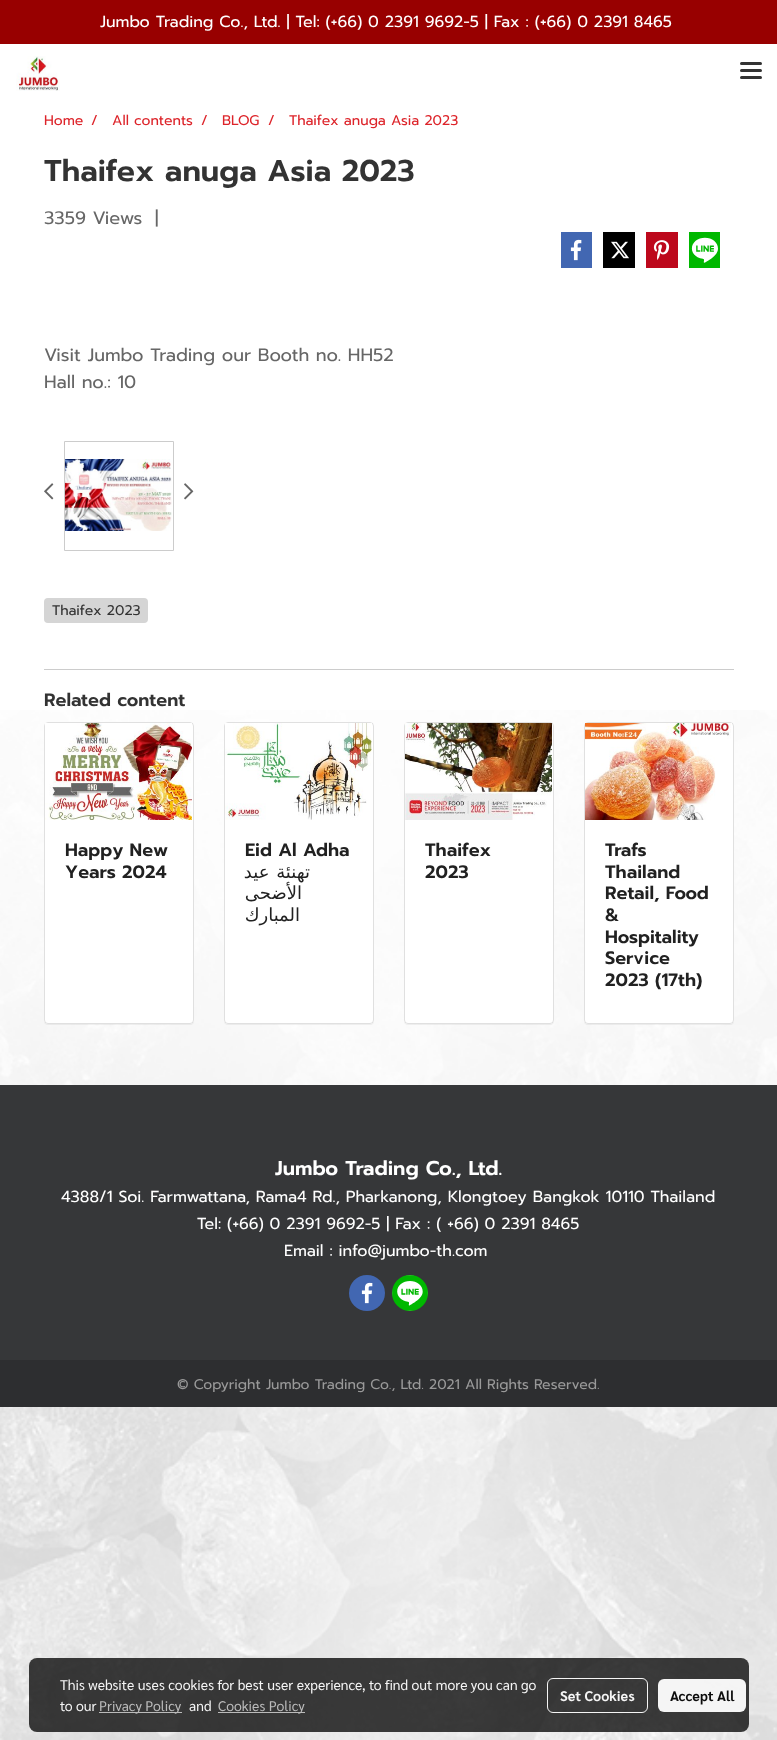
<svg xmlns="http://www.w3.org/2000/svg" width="777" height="1740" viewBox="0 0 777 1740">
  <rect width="100%" height="100%" fill="#fff"/>
  <image x="0" y="710" width="777" height="1030" href="img/1.png"/>
  <path d="M0 0h777v44H0z" fill="#980000"/>
  <image x="16" y="56" width="44" height="35" href="img/2.png"/>
  <rect x="740" y="69" width="22" height="3" rx="1.5" fill="#333"/>
  <rect x="740" y="62" width="22" height="3" rx="1.5" fill="#333"/>
  <rect x="740" y="76" width="22" height="3" rx="1.5" fill="#333"/>
  <path d="M561 232h31v36H561z" fill="#4267b2"/>
  <image x="570" y="239" width="12" height="22" href="img/3.png"/>
  <path d="M603 232h32v36H603z" fill="#000"/>
  <image x="611" y="241" width="18" height="18" href="img/4.png"/>
  <path d="M646 232h32v36H646z" fill="#bd081c"/>
  <image x="653" y="240" width="17" height="20" href="img/5.png"/>
  <path d="M689 232h31v36H689z" fill="#00b800"/>
  <image x="691" y="237" width="27" height="26" href="img/6.png"/>
  <path d="M64.5 441.5h109v109H64.5z" fill="none" stroke="#ccc"/>
  <image x="65" y="459" width="107" height="72" href="img/7.png"/>
  <image x="44" y="483" width="10" height="17" href="img/8.png"/>
  <image x="184" y="483" width="10" height="17" href="img/9.png"/>
  <rect x="44" y="598" width="104" height="25" rx="4" fill="#d5d5d5"/>
  <path d="M44 669h690v1H44z" fill="#ccc"/>
  <rect x="44" y="723" width="150" height="302" rx="4" fill="#0000000d" filter="blur(0.5px)"/>
  <rect x="44" y="722" width="150" height="302" rx="4" fill="#fff"/>
  <rect x="44.5" y="722.5" width="149" height="301" rx="3.5" fill="none" stroke="#0000001f"/>
  <image x="45" y="723" width="147" height="97" href="img/10.png"/>
  <rect x="224" y="723" width="150" height="302" rx="4" fill="#0000000d" filter="blur(0.5px)"/>
  <rect x="224" y="722" width="150" height="302" rx="4" fill="#fff"/>
  <rect x="224.5" y="722.5" width="149" height="301" rx="3.5" fill="none" stroke="#0000001f"/>
  <image x="225" y="723" width="147" height="97" href="img/11.png"/>
  <rect x="404" y="723" width="150" height="302" rx="4" fill="#0000000d" filter="blur(0.5px)"/>
  <rect x="404" y="722" width="150" height="302" rx="4" fill="#fff"/>
  <rect x="404.5" y="722.5" width="149" height="301" rx="3.5" fill="none" stroke="#0000001f"/>
  <image x="405" y="723" width="147" height="97" href="img/12.png"/>
  <rect x="584" y="723" width="150" height="302" rx="4" fill="#0000000d" filter="blur(0.5px)"/>
  <rect x="584" y="722" width="150" height="302" rx="4" fill="#fff"/>
  <rect x="584.5" y="722.5" width="149" height="301" rx="3.5" fill="none" stroke="#0000001f"/>
  <image x="585" y="723" width="147" height="97" href="img/13.png"/>
  <path d="M0 1085h777v275H0z" fill="#363739"/>
  <circle cx="367" cy="1293" r="18" fill="#4267b2"/>
  <image x="361" y="1282" width="12" height="22" href="img/3.png"/>
  <circle cx="410" cy="1293" r="18" fill="#00b800"/>
  <image x="392" y="1275" width="36" height="36" href="img/14.png"/>
  <path d="M0 1360h777v47H0z" fill="#2d2e30"/>
  <rect x="29" y="1658" width="720" height="74" rx="8" fill="#000000c2"/>
  <path d="M99 1712h83v1H99z" fill="#c2c2c2f2"/>
  <path d="M218 1712h87v1H218z" fill="#bbb"/>
  <rect x="547.5" y="1678.5" width="100" height="34" rx="5.5" fill="none" stroke="#fffffff2"/>
  <rect x="658" y="1679" width="88" height="33" rx="6" fill="#fffffff2"/>
  <text x="100" y="27" font-family="Prompt" font-size="16" fill="#fff">Jumbo Trading Co., Ltd. | Tel: (+66) 0 2391 9692-5 | Fax : (+66) 0 2391 8465</text>
  <g font-family="Prompt" font-size="14" fill="#dd242a">
    <text x="44" y="125">Home</text>
    <text x="91" y="125">/</text>
    <text x="112" y="125">All contents</text>
    <text x="201" y="125">/</text>
    <text x="222" y="125">BLOG</text>
    <text x="268" y="125">/</text>
    <text x="289" y="125">Thaifex anuga Asia 2023</text>
  </g>
  <text x="44" y="181" font-family="Prompt" font-size="30" font-weight="600" fill="#333">Thaifex anuga Asia 2023</text>
  <g font-family="Prompt" font-size="18" fill="#666">
    <text x="44" y="224">3359 Views</text>
    <text x="155" y="224">|</text>
    <text x="44" y="361">Visit Jumbo Trading our Booth no. HH52</text>
    <text x="44" y="388">Hall no.: 10</text>
  </g>
  <text x="52" y="615" font-family="Prompt" font-size="14" fill="#333">Thaifex 2023</text>
  <text x="44" y="706" font-family="Prompt" font-size="18" font-weight="600" fill="#333">Related content</text>
  <g font-family="Prompt" font-size="18" font-weight="600" fill="#212121">
    <text x="65" y="856">Happy New</text>
    <text x="65" y="878">Years 2024</text>
    <text x="245" y="856">Eid Al Adha</text>
  </g>
  <g font-family="DejaVu Sans" font-size="18" direction="rtl" fill="#212121">
    <text x="310" y="878" word-spacing="1">تهنئة عيد</text>
    <text x="302" y="899">الأضحى</text>
    <text x="300" y="921">المبارك</text>
  </g>
  <g font-family="Prompt" font-size="18" font-weight="600" fill="#212121">
    <text x="425" y="856">Thaifex</text>
    <text x="425" y="878">2023</text>
    <text x="605" y="856">Trafs</text>
    <text x="605" y="878">Thailand</text>
    <text x="605" y="899">Retail, Food</text>
    <text x="605" y="921">&amp;</text>
    <text x="605" y="943">Hospitality</text>
    <text x="605" y="964">Service</text>
    <text x="605" y="986">2023 (17th)</text>
  </g>
  <text x="275" y="1175" font-family="Prompt" font-size="20" font-weight="600" fill="#fff">Jumbo Trading Co., Ltd.</text>
  <g font-family="Prompt" font-size="16" fill="#fff">
    <text x="61" y="1202">4388/1 Soi. Farmwattana, Rama4 Rd., Pharkanong, Klongtoey Bangkok 10110 Thailand</text>
    <text x="197" y="1229">Tel: (+66) 0 2391 9692-5 | Fax : ( +66) 0 2391 8465</text>
    <text x="284" y="1256">Email : info@jumbo-th.com</text>
  </g>
  <text x="177" y="1389" font-family="Prompt" font-size="14" fill="#999">© Copyright Jumbo Trading Co., Ltd. 2021 All Rights Reserved.</text>
  <g font-family="Sarabun" font-size="14" fill="#f5f5f5">
    <text x="60" y="1690">This website uses cookies for best user experience, to find out more you can go</text>
    <text x="60" y="1711">to our</text>
  </g>
  <text x="99" y="1711" font-family="Sarabun" font-size="14" fill="#bbb">Privacy Policy</text>
  <text x="189" y="1711" font-family="Sarabun" font-size="14" fill="#f5f5f5">and</text>
  <text x="218" y="1711" font-family="Sarabun" font-size="14" fill="#bbb">Cookies Policy</text>
  <text x="560" y="1701" font-family="Sarabun" font-size="14" font-weight="bold" fill="#f5f5f5">Set Cookies</text>
  <text x="670" y="1701" font-family="Sarabun" font-size="14" font-weight="bold" fill="#0c0c0c">Accept All</text>
</svg>
